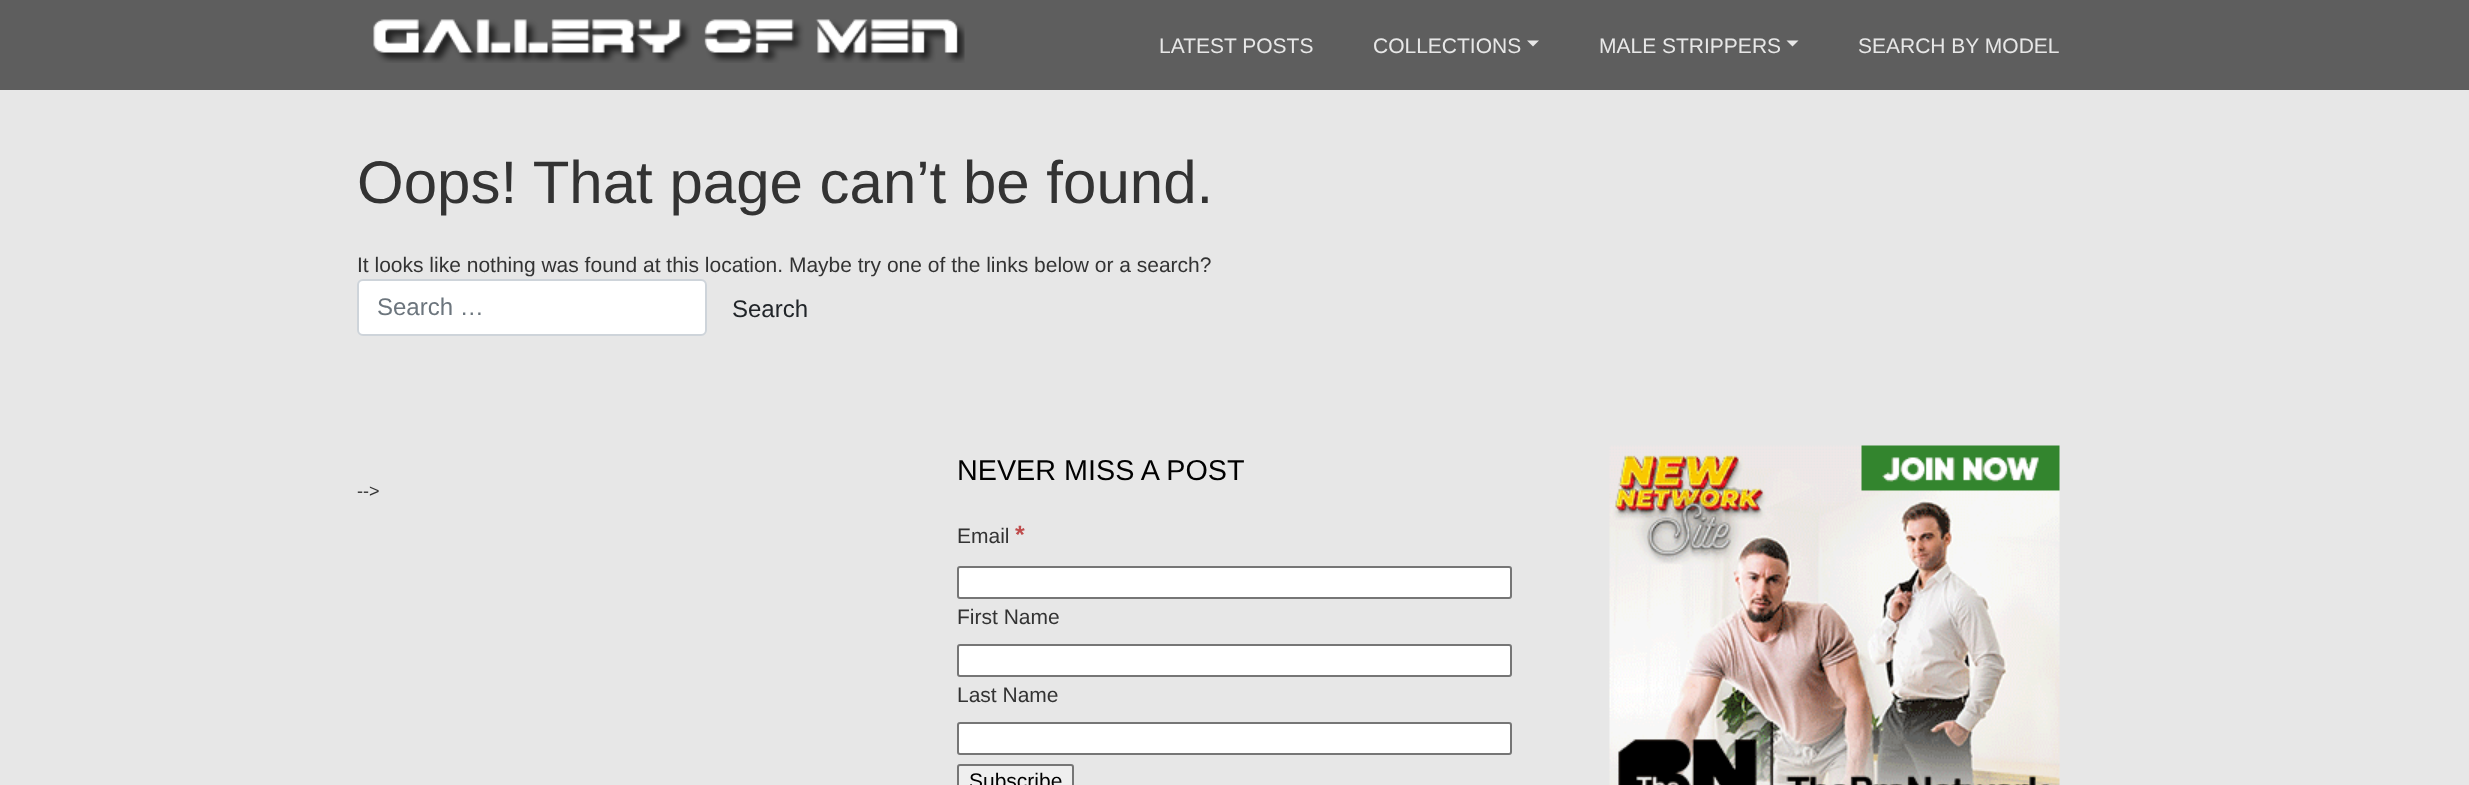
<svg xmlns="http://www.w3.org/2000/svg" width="2469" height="785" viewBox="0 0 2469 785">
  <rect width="100%" height="100%" fill="#e7e7e7"/>
  <path d="M0 0h2469v90H0z" fill="#5e5e5e"/>
  <image x="373" y="19" width="592" height="44" href="img/1.png"/>
  <path d="M1527 40.5H1539L1533 46.5Z" fill="#e7e7e7"/>
  <path d="M1786.5 40.5H1798.5L1792.5 46.5Z" fill="#e7e7e7"/>
  <rect x="358" y="280" width="348" height="55" rx="5" fill="#fff" stroke="#ced4da" stroke-width="2"/>
  <rect x="958" y="567" width="553" height="31" rx="2" fill="#fff" stroke="#767676" stroke-width="2"/>
  <rect x="958" y="645" width="553" height="31" rx="2" fill="#fff" stroke="#767676" stroke-width="2"/>
  <rect x="958" y="723" width="553" height="31" rx="2" fill="#fff" stroke="#767676" stroke-width="2"/>
  <rect x="958" y="765" width="115" height="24" rx="2" fill="#efefef" stroke="#767676" stroke-width="2"/>
  <image x="1609" y="445" width="451" height="340" href="img/2.png"/>
  <g font-family="Liberation Sans" font-size="21" fill="#e7e7e7">
    <text x="1159" y="53">LATEST POSTS</text>
    <text x="1373" y="53">COLLECTIONS</text>
    <text x="1599" y="53">MALE STRIPPERS</text>
    <text x="1858" y="53">SEARCH BY MODEL</text>
  </g>
  <text x="357" y="203" font-family="Liberation Sans" font-size="60" fill="#333">Oops! That page can’t be found.</text>
  <text x="357" y="272" font-family="Liberation Sans" font-size="21" fill="#333">It looks like nothing was found at this location. Maybe try one of the links below or a search?</text>
  <text x="377" y="315" font-family="Liberation Sans" font-size="24" fill="#6c757d">Search …</text>
  <text x="732" y="317" font-family="Liberation Sans" font-size="24" fill="#212529">Search</text>
  <text x="357" y="497" font-family="Liberation Sans" font-size="18" fill="#333">--&gt;</text>
  <text x="957" y="480" font-family="Liberation Sans" font-size="28.75" fill="#000">NEVER MISS A POST</text>
  <text x="957" y="543" font-family="Liberation Sans" font-size="21" fill="#333">Email</text>
  <text x="1015" y="543" font-family="Liberation Sans" font-size="25" font-weight="bold" fill="#bf4d4d">*</text>
  <g font-family="Liberation Sans" font-size="21" fill="#333">
    <text x="957" y="624">First Name</text>
    <text x="957" y="702">Last Name</text>
  </g>
  <text x="969" y="788" font-family="Liberation Sans" font-size="21" fill="#000">Subscribe</text>
</svg>
